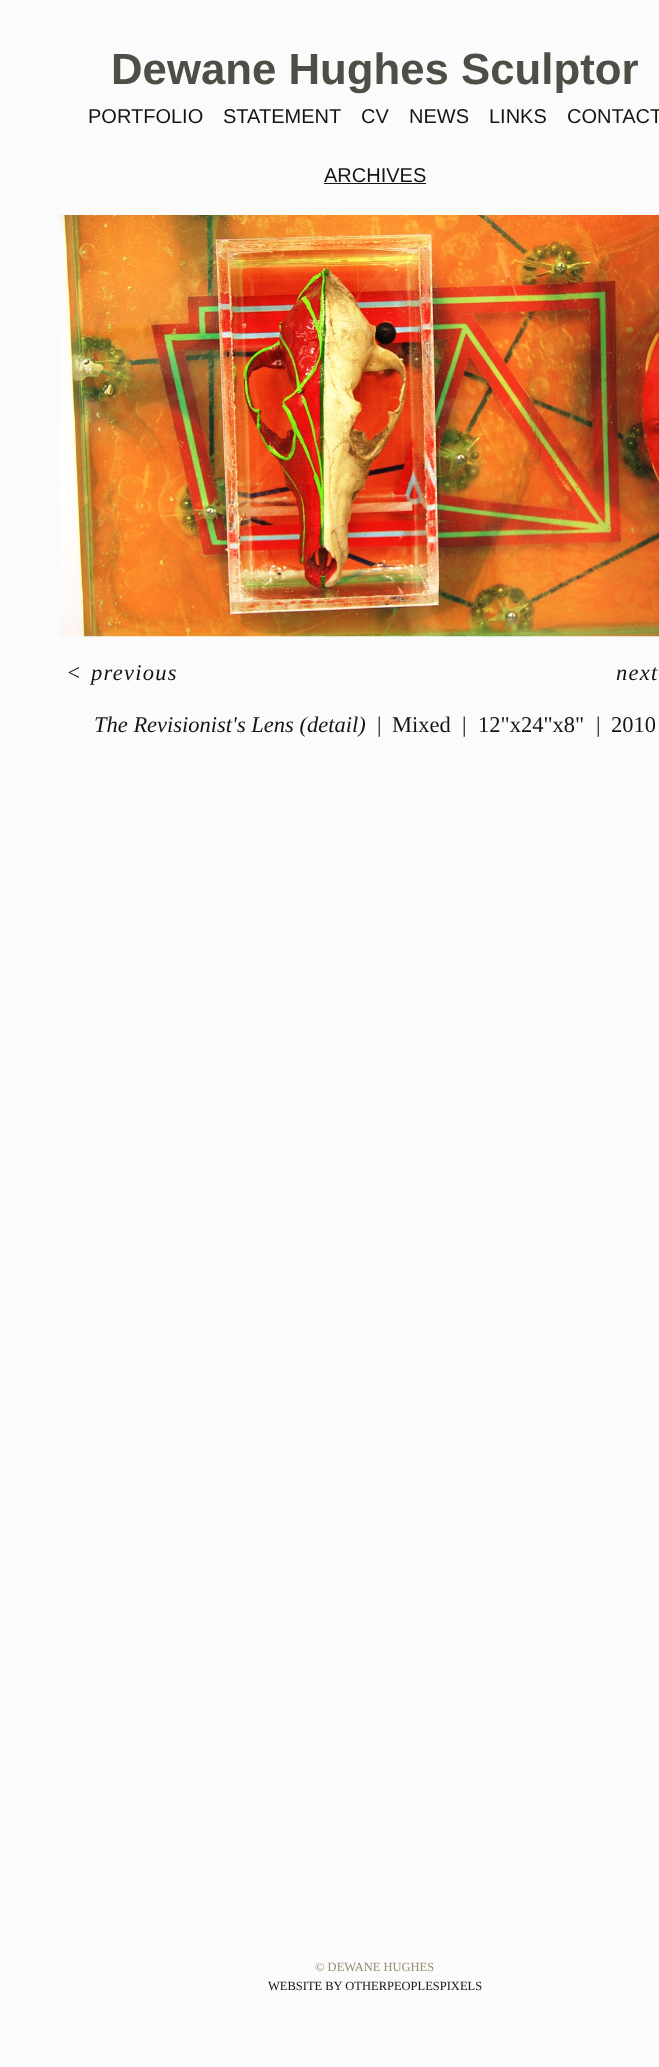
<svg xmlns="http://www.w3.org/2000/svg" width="659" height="2067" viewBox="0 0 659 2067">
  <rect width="100%" height="100%" fill="#fbfbfb"/>
  <path d="M324 183h102v1H324z" fill="#161613"/>
  <image x="60" y="215" width="599" height="422" href="img/1.png"/>
  <text x="111" y="84" font-family="Liberation Sans" font-size="43.75" font-weight="bold" fill="#4e4d46">Dewane Hughes Sculptor</text>
  <g font-family="Liberation Sans" font-size="20" fill="#141513">
    <text x="88" y="123">PORTFOLIO</text>
    <text x="223" y="123">STATEMENT</text>
    <text x="361" y="123">CV</text>
    <text x="409" y="123">NEWS</text>
    <text x="489" y="123">LINKS</text>
    <text x="567" y="123">CONTACT</text>
    <text x="324" y="182">ARCHIVES</text>
  </g>
  <g font-family="Liberation Serif" font-size="22.5" font-style="italic" letter-spacing="1.25" fill="#141513">
    <text x="66" y="680">&lt;</text>
    <text x="91" y="680">previous</text>
    <text x="616" y="680">next</text>
  </g>
  <text x="94" y="732" font-family="Liberation Serif" font-size="22.5" font-style="italic" fill="#141513">The Revisionist's Lens (detail)</text>
  <g font-family="Liberation Serif" font-size="22.5" fill="#141513">
    <text x="377" y="732">|</text>
    <text x="392" y="732">Mixed</text>
    <text x="462" y="732">|</text>
    <text x="478" y="732">12"x24"x8"</text>
    <text x="596" y="732">|</text>
    <text x="611" y="732">2010</text>
  </g>
  <text x="315" y="1971" font-family="Liberation Serif" font-size="12.5" fill="#988b71">© DEWANE HUGHES</text>
  <text x="268" y="1990" font-family="Liberation Serif" font-size="12.5" fill="#141513">WEBSITE BY OTHERPEOPLESPIXELS</text>
</svg>
